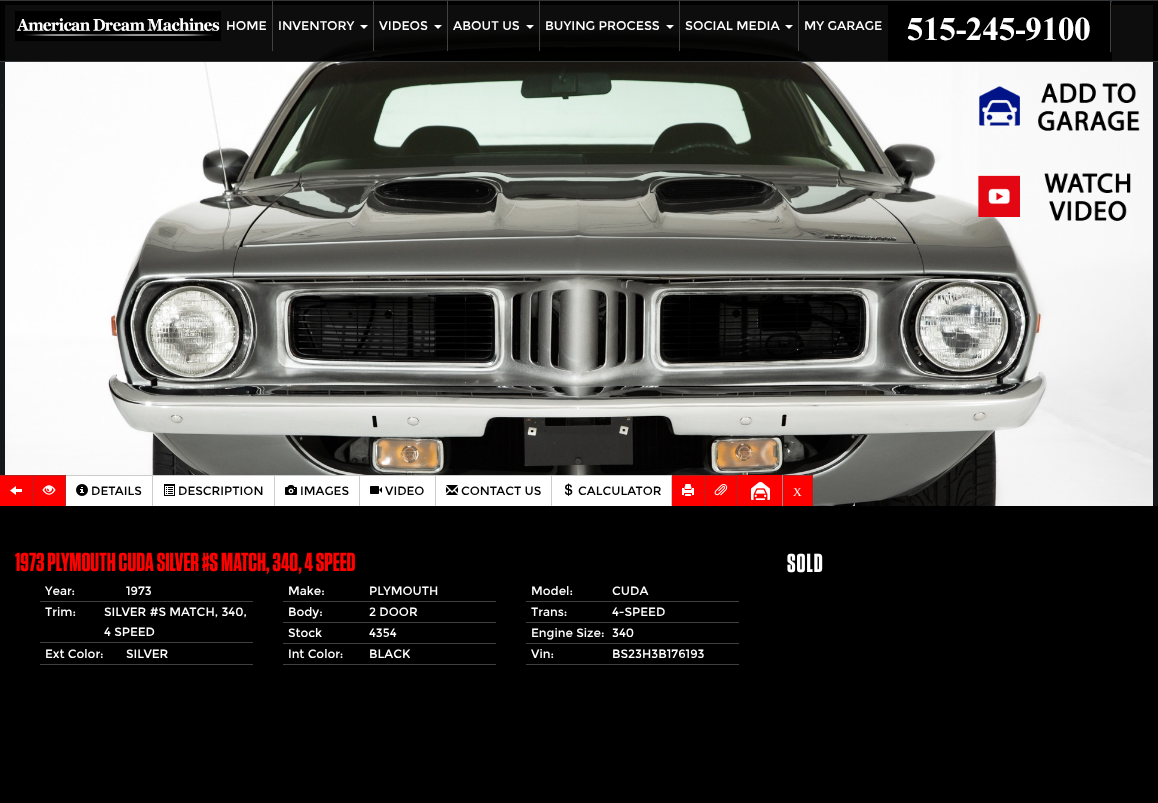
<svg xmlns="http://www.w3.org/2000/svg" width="1158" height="803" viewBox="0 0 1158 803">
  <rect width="100%" height="100%" fill="#15171b"/>
  <image x="1" y="2" width="1150" height="473" href="img/1.png"/>
  <image x="5" y="5" width="1148" height="501" href="img/2.png"/>
  <image x="979" y="82" width="161" height="49" href="img/3.png"/>
  <image x="978" y="172" width="153" height="49" href="img/4.png"/>
  <path d="M0 1h1158v60H0z" fill="#000000f2"/>
  <path d="M0 0h1158v1H0z" fill="#33373a"/>
  <path d="M0 61h1158v1H0z" fill="#33373a"/>
  <image x="15" y="11" width="206" height="30" href="img/5.png"/>
  <path d="M272 1h1v50H272z" fill="#484848e6"/>
  <path d="M373 1h1v50H373z" fill="#484848e6"/>
  <path d="M360 25H368L364 29Z" fill="#fff"/>
  <path d="M447 1h1v50H447z" fill="#484848e6"/>
  <path d="M434 25H442L438 29Z" fill="#fff"/>
  <path d="M539 1h1v50H539z" fill="#484848e6"/>
  <path d="M526 25H534L530 29Z" fill="#fff"/>
  <path d="M679 1h1v50H679z" fill="#484848e6"/>
  <path d="M666 25H674L670 29Z" fill="#fff"/>
  <path d="M798 1h1v50H798z" fill="#484848e6"/>
  <path d="M785 25H793L789 29Z" fill="#fff"/>
  <image x="888" y="1" width="224" height="60" href="img/6.png"/>
  <path d="M0 506h1158v297H0z" fill="#000"/>
  <path d="M0 475h66v31H0z" fill="#f00"/>
  <path d="M0 475H33L32 476H0Z" fill="#b12325"/>
  <path d="M33 475V506H32V476Z" fill="#514e5273"/>
  <image x="10" y="486" width="12" height="9" href="img/7.png"/>
  <path d="M33 475H66L65 476H33Z" fill="#b12325"/>
  <path d="M66 475V506H65V476Z" fill="#514e5273"/>
  <image x="42" y="485" width="14" height="10" href="img/8.png"/>
  <path d="M672 475h33v31H672z" fill="#f00"/>
  <path d="M672 475H705L704 476H672Z" fill="#b12325"/>
  <path d="M705 475V506H704V476Z" fill="#514e5273"/>
  <image x="682" y="484" width="12" height="12" href="img/9.png"/>
  <path d="M705 475h77v31H705z" fill="#f00"/>
  <image x="751" y="482" width="19" height="18" href="img/10.png"/>
  <path d="M782 475h1v31H782z" fill="#919191"/>
  <path d="M66 476h86v30H66z" fill="#fff"/>
  <path d="M66 475h606v1H66z" fill="#ccc"/>
  <path d="M152 475h1v31H152z" fill="#ccc"/>
  <image x="76" y="484" width="12" height="12" href="img/11.png"/>
  <path d="M153 476h121v30H153z" fill="#fff"/>
  <path d="M274 475h1v31H274z" fill="#ccc"/>
  <image x="164" y="484" width="11" height="12" href="img/12.png"/>
  <path d="M275 476h84v30H275z" fill="#fff"/>
  <path d="M359 475h1v31H359z" fill="#ccc"/>
  <image x="285" y="485" width="12" height="10" href="img/13.png"/>
  <path d="M360 476h75v30H360z" fill="#fff"/>
  <path d="M435 475h1v31H435z" fill="#ccc"/>
  <image x="370" y="486" width="12" height="8" href="img/14.png"/>
  <path d="M436 476h115v30H436z" fill="#fff"/>
  <path d="M551 475h1v31H551z" fill="#ccc"/>
  <image x="446" y="485" width="12" height="10" href="img/15.png"/>
  <path d="M552 476h119v30H552z" fill="#fff"/>
  <path d="M671 475h1v31H671z" fill="#ccc"/>
  <image x="565" y="483" width="8" height="13" href="img/16.png"/>
  <path d="M705 475H738L737 476H705Z" fill="#b12325"/>
  <path d="M738 475V506H737V476Z" fill="#514e5273"/>
  <image x="714" y="484" width="14" height="12" href="img/17.png"/>
  <path d="M783 475h30v31H783z" fill="#f00"/>
  <path d="M783 475H813L812 476H783Z" fill="#b12325"/>
  <path d="M813 475V506H812V476Z" fill="#514e5273"/>
  <path d="M40 601h213v1H40z" fill="#404040"/>
  <path d="M283 601h213v1H283z" fill="#404040"/>
  <path d="M526 601h213v1H526z" fill="#404040"/>
  <path d="M40 642h213v1H40z" fill="#404040"/>
  <path d="M283 622h213v1H283z" fill="#404040"/>
  <path d="M526 622h213v1H526z" fill="#404040"/>
  <path d="M283 643h213v1H283z" fill="#404040"/>
  <path d="M526 643h213v1H526z" fill="#404040"/>
  <path d="M40 664h213v1H40z" fill="#404040"/>
  <path d="M283 664h213v1H283z" fill="#404040"/>
  <path d="M526 664h213v1H526z" fill="#404040"/>
  <g font-family="Montserrat" font-size="12.5" fill="#fff">
    <text x="226" y="30">HOME</text>
    <text x="278" y="30">INVENTORY</text>
    <text x="379" y="30">VIDEOS</text>
    <text x="453" y="30">ABOUT US</text>
    <text x="545" y="30">BUYING PROCESS</text>
    <text x="685" y="30">SOCIAL MEDIA</text>
    <text x="804" y="30">MY GARAGE</text>
  </g>
  <g font-family="Montserrat" font-size="12" fill="#000">
    <text x="91" y="495">DETAILS</text>
    <text x="178" y="495">DESCRIPTION</text>
    <text x="300" y="495">IMAGES</text>
    <text x="385" y="495">VIDEO</text>
    <text x="461" y="495">CONTACT US</text>
    <text x="578" y="495">CALCULATOR</text>
  </g>
  <text x="793" y="496" font-family="Liberation Serif" font-size="12" fill="#fff">X</text>
  <text x="15" y="571" font-family="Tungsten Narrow" font-size="26" font-weight="bold" fill="#f00">1973 PLYMOUTH CUDA SILVER #S MATCH, 340, 4 SPEED</text>
  <text x="787" y="572" font-family="Tungsten Narrow" font-size="26" font-weight="bold" letter-spacing="1" fill="#fff">SOLD</text>
  <g font-family="Montserrat" font-size="12" fill="#fff">
    <text x="45" y="595">Year:</text>
    <text x="126" y="595">1973</text>
    <text x="288" y="595">Make:</text>
    <text x="369" y="595">PLYMOUTH</text>
    <text x="531" y="595">Model:</text>
    <text x="612" y="595">CUDA</text>
    <text x="45" y="616">Trim:</text>
    <text x="104" y="616">SILVER #S MATCH, 340,</text>
    <text x="104" y="636">4 SPEED</text>
    <text x="288" y="616">Body:</text>
    <text x="369" y="616">2 DOOR</text>
    <text x="531" y="616">Trans:</text>
    <text x="612" y="616">4-SPEED</text>
    <text x="288" y="637">Stock</text>
    <text x="369" y="637">4354</text>
    <text x="531" y="637">Engine Size:</text>
    <text x="612" y="637">340</text>
    <text x="45" y="658">Ext Color:</text>
    <text x="126" y="658">SILVER</text>
    <text x="288" y="658">Int Color:</text>
    <text x="369" y="658">BLACK</text>
    <text x="531" y="658">Vin:</text>
    <text x="612" y="658">BS23H3B176193</text>
  </g>
</svg>
